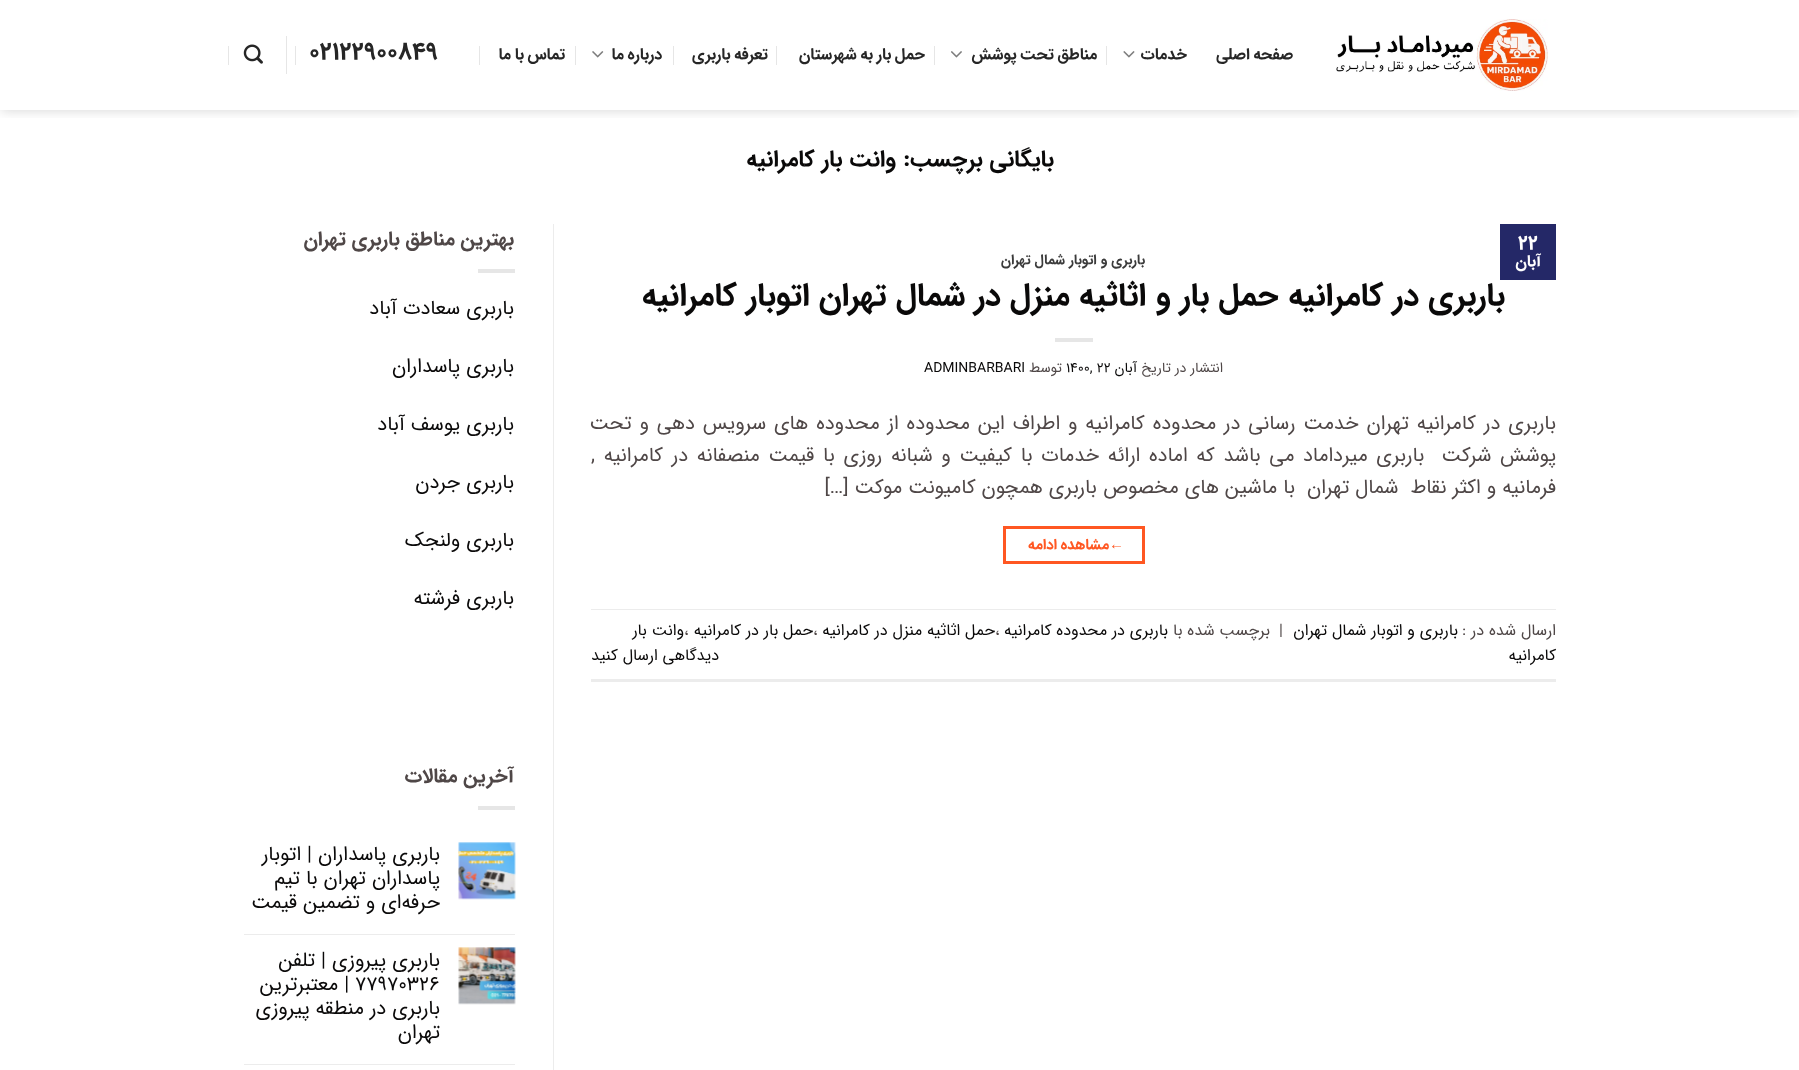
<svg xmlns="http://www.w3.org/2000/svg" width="1799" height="1070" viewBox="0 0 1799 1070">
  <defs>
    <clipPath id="clip1"><path d="M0 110h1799v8H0z"/></clipPath>
  </defs>
  <rect width="100%" height="100%" fill="#fff"/>
  <g clip-path="url(#clip1)">
    <path d="M1 1h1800v110H1z" fill="#00000026" filter="blur(6px)"/>
  </g>
  <image x="1336" y="19" width="212" height="72" href="img/1.png"/>
  <image x="1123" y="51" width="12" height="7" href="img/2.png"/>
  <path d="M1106 46h1v19H1106z" fill="#e6e6e6"/>
  <image x="951" y="51" width="11" height="7" href="img/3.png"/>
  <path d="M934 46h1v19H934z" fill="#e6e6e6"/>
  <path d="M776 46h1v19H776z" fill="#e6e6e6"/>
  <path d="M673 46h1v19H673z" fill="#e6e6e6"/>
  <image x="592" y="51" width="12" height="7" href="img/4.png"/>
  <path d="M575 46h1v19H575z" fill="#e6e6e6"/>
  <path d="M479 46h1v19H479z" fill="#e6e6e6"/>
  <path d="M295 46h1v19H295z" fill="#e6e6e6"/>
  <path d="M286 36h1v38H286z" fill="#e6e6e6"/>
  <image x="243" y="44" width="20" height="20" href="img/5.png"/>
  <path d="M228 46h1v19H228z" fill="#e6e6e6"/>
  <path d="M1500 224h56v56H1500z" fill="#242867"/>
  <path d="M1055 338h38v4H1055z" fill="#e6e6e6"/>
  <path d="M1004.5 527.5h139v35H1004.5z" fill="none" stroke="#ff5722" stroke-width="3"/>
  <path d="M591 609h965v1H591z" fill="#ececec"/>
  <path d="M591 679h965v3H591z" fill="#ececec"/>
  <path d="M553 224h1v846H553z" fill="#ececec"/>
  <path d="M478 269h37v4H478z" fill="#e6e6e6"/>
  <path d="M478 806h37v4H478z" fill="#e6e6e6"/>
  <image x="458" y="842" width="58" height="58" href="img/6.png"/>
  <path d="M244 934h271v1H244z" fill="#ececec"/>
  <image x="458" y="947" width="58" height="58" href="img/7.png"/>
  <path d="M244 1064h271v1H244z" fill="#ececec"/>
  <g font-family="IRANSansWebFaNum" font-size="16" font-weight="bold" letter-spacing="0.3" direction="rtl" fill="#262626">
    <text x="1293" y="59" word-spacing="-1">صفحه اصلی</text>
    <text x="1187" y="59">خدمات</text>
    <text x="1097" y="59" word-spacing="-1">مناطق تحت پوشش</text>
    <text x="925" y="59" word-spacing="-1">حمل بار به شهرستان</text>
    <text x="768" y="59" word-spacing="-1">تعرفه باربری</text>
    <text x="662" y="59" word-spacing="-1">درباره ما</text>
    <text x="565" y="59" word-spacing="-1">تماس با ما</text>
  </g>
  <text x="309" y="59" font-family="IRANSansWebFaNum" font-size="24.5" font-weight="bold" letter-spacing="0.25" fill="#262626">02122900849</text>
  <g font-family="IRANSansWebFaNum" font-size="23" font-weight="bold" direction="rtl" fill="#0a0909">
    <text x="1054" y="166">بایگانی برچسب:</text>
    <text x="896" y="166">وانت بار کامرانیه</text>
  </g>
  <text x="1518" y="249" font-family="IRANSansWebFaNum" font-size="20" font-weight="bold" fill="#fff">۲۲</text>
  <text x="1541" y="266" font-family="IRANSansWebFaNum" font-size="16" font-weight="bold" direction="rtl" fill="#fff">آبان</text>
  <text x="1145" y="264" font-family="IRANSansWebFaNum" font-size="14" font-weight="bold" direction="rtl" fill="#3b3b3b">باربری و اتوبار شمال تهران</text>
  <text x="1505" y="305" font-family="IRANSansWebFaNum" font-size="32" font-weight="bold" direction="rtl" fill="#0a0909">باربری در کامرانیه حمل بار و اثاثیه منزل در شمال تهران اتوبار کامرانیه</text>
  <text x="1223" y="372" font-family="IRANSansWebFaNum" font-size="14" direction="rtl" fill="#4f4747">انتشار در تاریخ</text>
  <text x="1137" y="372" font-family="IRANSansWebFaNum" font-size="14" direction="rtl" fill="#0a0909">آبان</text>
  <text x="1066" y="372" font-family="IRANSansWebFaNum" font-size="14" fill="#0a0909">۱۴۰۰, ۲۲</text>
  <text x="1062" y="372" font-family="IRANSansWebFaNum" font-size="14" direction="rtl" fill="#4f4747">توسط</text>
  <text x="924" y="372" font-family="IRANSansWebFaNum" font-size="14" fill="#0a0909">ADMINBARBARI</text>
  <g font-family="IRANSansWebFaNum" font-size="20" direction="rtl" fill="#4f4747">
    <text x="1556" y="429" word-spacing="1.9">باربری در کامرانیه تهران خدمت رسانی در محدوده کامرانیه و اطراف این محدوده از محدوده های سرویس دهی و تحت</text>
    <text x="1556" y="461" word-spacing="2.7" xml:space="preserve">پوشش شرکت  باربری میرداماد می باشد که اماده ارائه خدمات با کیفیت و شبانه روزی با قیمت منصفانه در کامرانیه ,</text>
    <text x="1556" y="493" xml:space="preserve">فرمانیه و اکثر نقاط  شمال تهران  با ماشین های مخصوص باربری همچون کامیونت موکت […]</text>
  </g>
  <text x="1109" y="549" font-family="Liberation Sans" font-size="15" font-weight="bold" letter-spacing="0.5" fill="#ff5722">←</text>
  <text x="1109" y="549" word-spacing="-1" font-family="IRANSansWebFaNum" font-size="15" font-weight="bold" letter-spacing="0.5" direction="rtl" fill="#ff5722">مشاهده ادامه</text>
  <text x="1556" y="635" font-family="IRANSansWebFaNum" font-size="16" direction="rtl" fill="#4f4747">ارسال شده در :</text>
  <text x="1458" y="635" font-family="IRANSansWebFaNum" font-size="16" direction="rtl" fill="#0a0909">باربری و اتوبار شمال تهران</text>
  <text x="1279" y="635" font-family="IRANSansWebFaNum" font-size="16" fill="#4f4747">|</text>
  <text x="1270" y="635" font-family="IRANSansWebFaNum" font-size="16" direction="rtl" fill="#4f4747">برچسب‌ شده با</text>
  <text x="1168" y="635" font-family="IRANSansWebFaNum" font-size="16" direction="rtl" fill="#0a0909">باربری در محدوده کامرانیه</text>
  <text x="995" y="635" font-family="IRANSansWebFaNum" font-size="16" fill="#4f4747">،</text>
  <text x="995" y="635" font-family="IRANSansWebFaNum" font-size="16" direction="rtl" fill="#0a0909">حمل اثاثیه منزل در کامرانیه</text>
  <text x="813" y="635" font-family="IRANSansWebFaNum" font-size="16" fill="#4f4747">،</text>
  <text x="813" y="635" font-family="IRANSansWebFaNum" font-size="16" direction="rtl" fill="#0a0909">حمل بار در کامرانیه</text>
  <text x="684" y="635" font-family="IRANSansWebFaNum" font-size="16" fill="#4f4747">،</text>
  <g font-family="IRANSansWebFaNum" font-size="16" direction="rtl" fill="#0a0909">
    <text x="684" y="635">وانت بار</text>
    <text x="1556" y="660">کامرانیه</text>
    <text x="719" y="660">دیدگاهی ارسال کنید</text>
  </g>
  <text x="514" y="245" font-family="IRANSansWebFaNum" font-size="20" font-weight="bold" direction="rtl" fill="#4f4747">بهترین مناطق باربری تهران</text>
  <g font-family="IRANSansWebFaNum" font-size="20" direction="rtl" fill="#0a0909">
    <text x="514" y="314">باربری سعادت آباد</text>
    <text x="514" y="372">باربری پاسداران</text>
    <text x="514" y="430">باربری یوسف آباد</text>
    <text x="514" y="488">باربری جردن</text>
    <text x="514" y="546">باربری ولنجک</text>
    <text x="514" y="604">باربری فرشته</text>
  </g>
  <text x="514" y="782" font-family="IRANSansWebFaNum" font-size="20" font-weight="bold" direction="rtl" fill="#4f4747">آخرین مقالات</text>
  <g font-family="IRANSansWebFaNum" font-size="20" direction="rtl" fill="#0a0909">
    <text x="440" y="860">باربری پاسداران | اتوبار</text>
    <text x="440" y="884">پاسداران تهران با تیم</text>
    <text x="440" y="908">حرفه‌ای و تضمین قیمت</text>
    <text x="440" y="966">باربری پیروزی | تلفن</text>
  </g>
  <text x="355" y="990" font-family="IRANSansWebFaNum" font-size="20" fill="#0a0909">۷۷۹۷۰۳۲۶</text>
  <g font-family="IRANSansWebFaNum" font-size="20" direction="rtl" fill="#0a0909">
    <text x="349" y="990">| معتبرترین</text>
    <text x="440" y="1014">باربری در منطقه پیروزی</text>
    <text x="440" y="1038">تهران</text>
  </g>
</svg>
